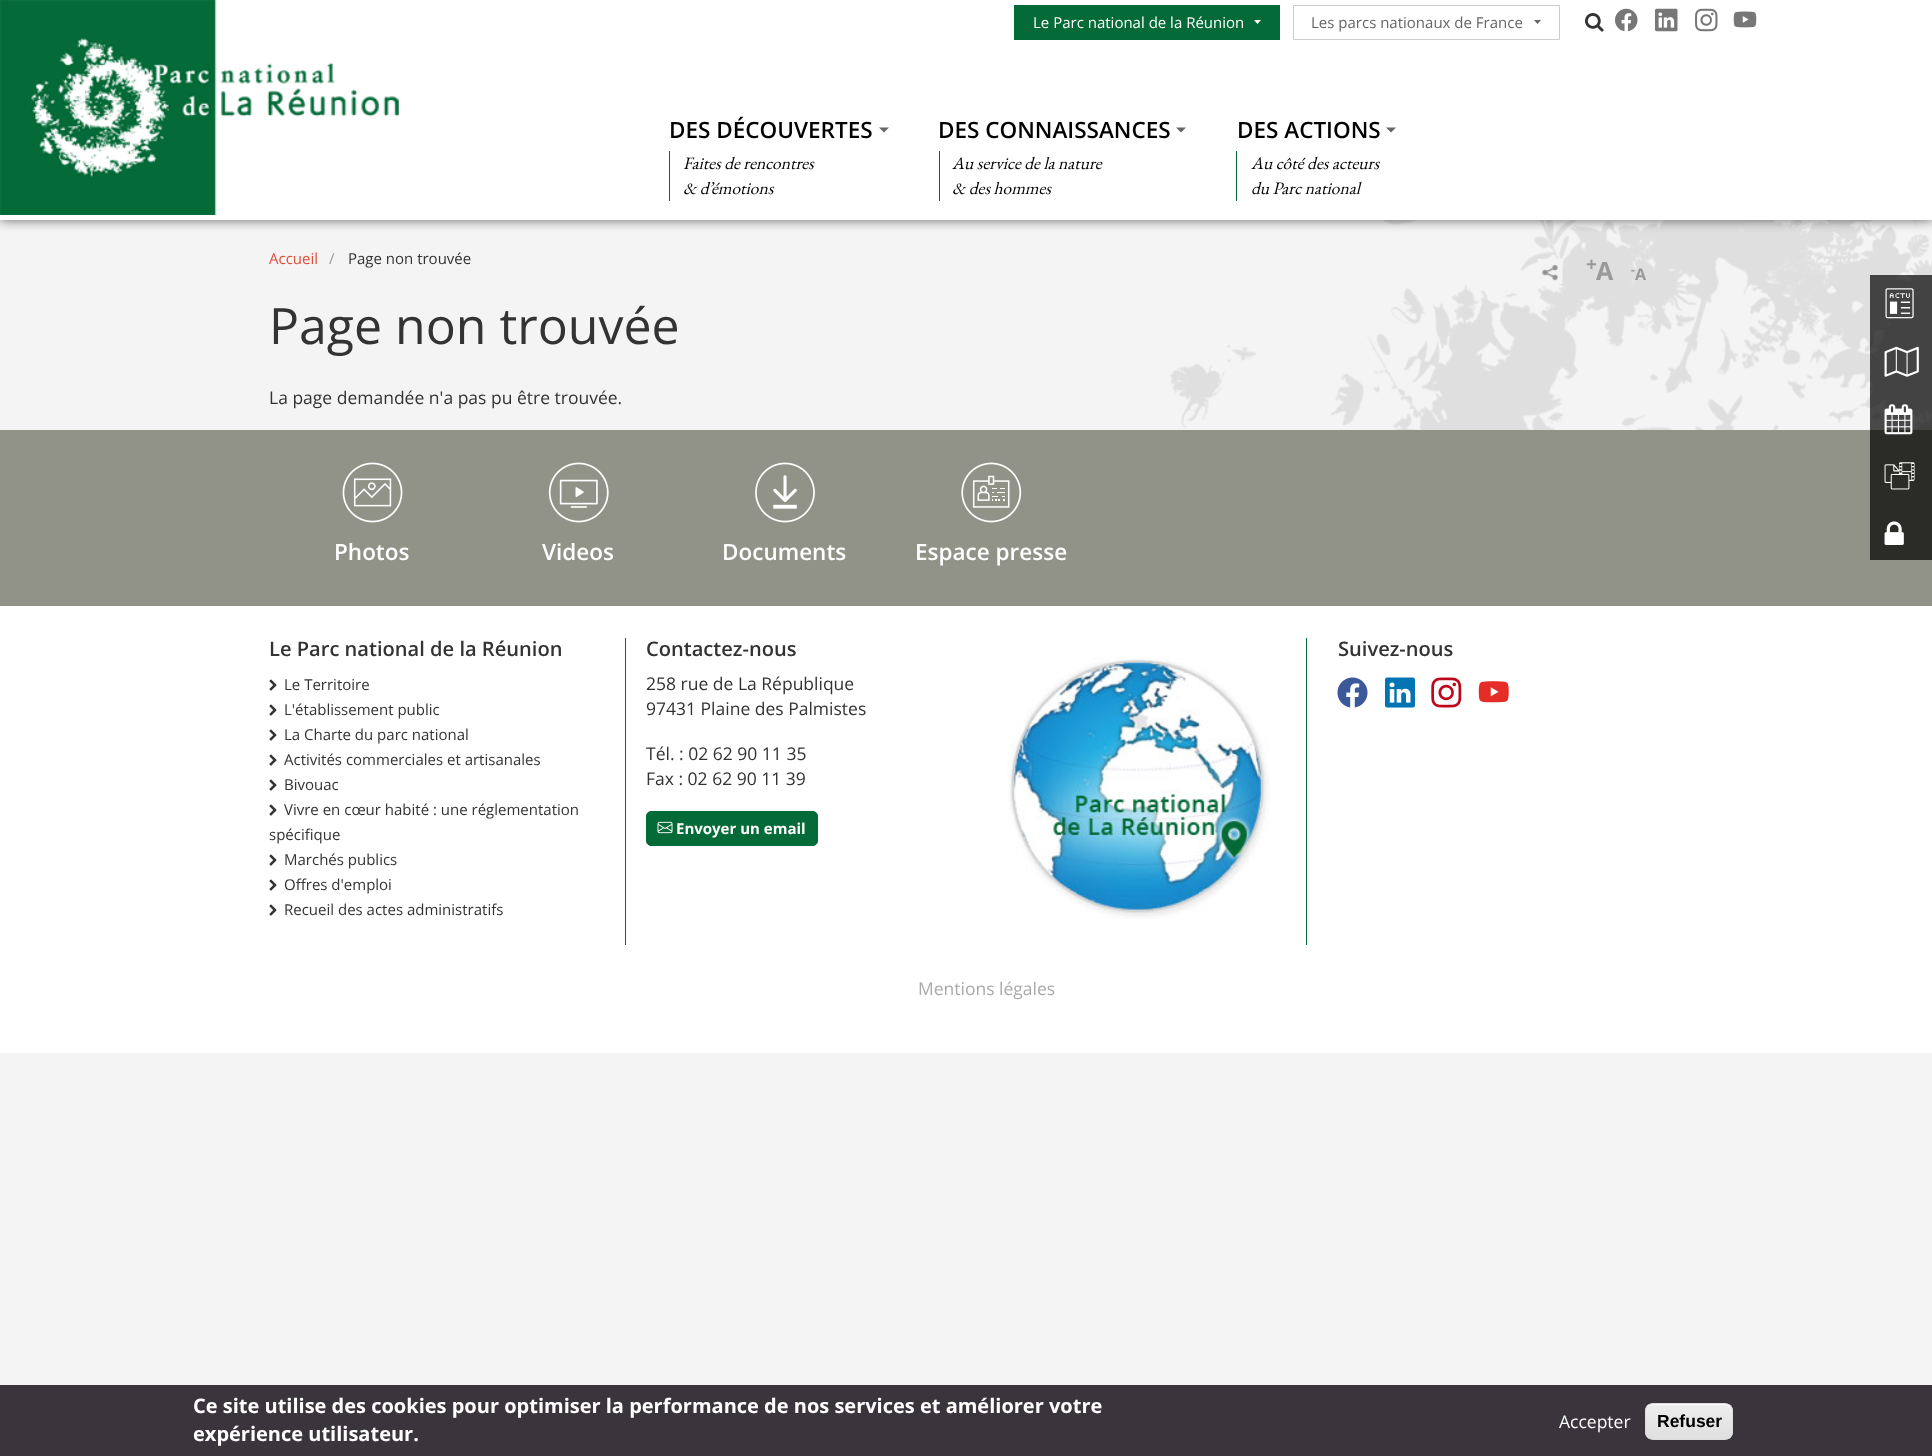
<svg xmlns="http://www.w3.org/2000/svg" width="1932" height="1456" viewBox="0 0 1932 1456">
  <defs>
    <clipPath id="clip1"><rect x="1645" y="1403" width="88" height="37" rx="8"/></clipPath>
    <linearGradient id="g1" gradientUnits="userSpaceOnUse" x1="1689" y1="1404" x2="1689" y2="1439"><stop offset="0.05" stop-color="#ededed"/><stop offset="1" stop-color="#dfdfdf"/></linearGradient>
  </defs>
  <rect width="100%" height="100%" fill="#f4f4f4"/>
  <image x="1170" y="220" width="762" height="210" href="img/1.png"/>
  <path d="M0 0h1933v220H0z" fill="#00000099" filter="blur(6px)"/>
  <path d="M0 0h1932v220H0z" fill="#fff"/>
  <image x="0" y="0" width="399" height="215" href="img/2.png"/>
  <path d="M1014 5h266v35H1014z" fill="#046a38"/>
  <path d="M1254 20H1261L1257.5 24Z" fill="#fff"/>
  <path d="M1293.5 5.5h266v34H1293.5z" fill="none" stroke="#ccc"/>
  <path d="M1534 20H1541L1537.5 24Z" fill="#666"/>
  <image x="1585" y="13" width="19" height="19" href="img/3.png"/>
  <image x="1615" y="8" width="23" height="24" href="img/4.png"/>
  <image x="1655" y="8" width="23" height="24" href="img/5.png"/>
  <image x="1695" y="8" width="23" height="24" href="img/6.png"/>
  <image x="1733" y="11" width="24" height="17" href="img/7.png"/>
  <path d="M879 127.5H889L884 132.5Z" fill="#666"/>
  <path d="M669 151h1v50H669z" fill="#046a38"/>
  <path d="M1176 127.5H1186L1181 132.5Z" fill="#666"/>
  <path d="M939 151h1v50H939z" fill="#046a38"/>
  <path d="M1386 127.5H1396L1391 132.5Z" fill="#666"/>
  <path d="M1236 151h1v50H1236z" fill="#046a38"/>
  <path d="M0 430h1932v176H0z" fill="#919388"/>
  <path d="M1870 275h62v285H1870z" fill="#000000b3"/>
  <image x="1885" y="288" width="29" height="31" href="img/8.png"/>
  <image x="1884" y="346" width="35" height="31" href="img/9.png"/>
  <image x="1884" y="404" width="29" height="31" href="img/10.png"/>
  <image x="1884" y="462" width="31" height="28" href="img/11.png"/>
  <image x="1884" y="521" width="20" height="24" href="img/12.png"/>
  <image x="1537" y="258" width="26" height="26" href="img/13.png"/>
  <path d="M0 606h1932v447H0z" fill="#fff"/>
  <image x="342" y="462" width="61" height="61" href="img/14.png"/>
  <image x="548" y="462" width="61" height="61" href="img/15.png"/>
  <image x="755" y="462" width="60" height="61" href="img/16.png"/>
  <image x="961" y="462" width="61" height="61" href="img/17.png"/>
  <image x="269" y="679" width="8" height="12" href="img/18.png"/>
  <image x="269" y="704" width="8" height="12" href="img/18.png"/>
  <image x="269" y="729" width="8" height="12" href="img/18.png"/>
  <image x="269" y="754" width="8" height="12" href="img/18.png"/>
  <image x="269" y="779" width="8" height="12" href="img/18.png"/>
  <image x="269" y="804" width="8" height="12" href="img/18.png"/>
  <image x="269" y="854" width="8" height="12" href="img/18.png"/>
  <image x="269" y="879" width="8" height="12" href="img/18.png"/>
  <image x="269" y="904" width="8" height="12" href="img/18.png"/>
  <path d="M625 638h1v307H625z" fill="#046a38"/>
  <rect x="646.5" y="811.5" width="171" height="34" rx="4.5" fill="#046a38" stroke="#046a38"/>
  <image x="657" y="821" width="16" height="13" href="img/19.png"/>
  <path d="M1306 638h1v307H1306z" fill="#046a38"/>
  <image x="1007" y="658" width="263" height="261" href="img/20.png"/>
  <image x="1337" y="677" width="31" height="31" href="img/21.png"/>
  <image x="1385" y="677" width="30" height="31" href="img/22.png"/>
  <image x="1431" y="677" width="31" height="31" href="img/23.png"/>
  <image x="1478" y="681" width="31" height="22" href="img/24.png"/>
  <path d="M0 1385h1932v71H0z" fill="#3a353c"/>
  <g clip-path="url(#clip1)">
    <path d="M1645 1404h88v35H1645z" fill="url(#g1)"/>
  </g>
  <path d="M1652 1405H1725C1728 1405 1731 1408 1731 1411C1731 1401 1720 1404 1713 1404H1664C1657 1404 1646 1401 1646 1411C1646 1408 1649 1405 1652 1405Z" fill="#fff"/>
  <rect x="1645.5" y="1403.5" width="87" height="36" rx="7.5" fill="none" stroke="#dcdcdc"/>
  <text x="1033" y="28" font-family="Open Sans" font-size="15" fill="#fff">Le Parc national de la Réunion</text>
  <text x="1311" y="28" font-family="Open Sans" font-size="15" fill="#666">Les parcs nationaux de France</text>
  <text x="669" y="138" font-family="Open Sans" font-size="22.5" font-weight="600" fill="#000">DES DÉCOUVERTES</text>
  <g font-family="EB Garamond" font-size="17.5" font-style="italic" fill="#000">
    <text x="683" y="169">Faites de rencontres</text>
    <text x="683" y="194">&amp; d’émotions</text>
  </g>
  <text x="938" y="138" font-family="Open Sans" font-size="22.5" font-weight="600" fill="#000">DES CONNAISSANCES</text>
  <g font-family="EB Garamond" font-size="17.5" font-style="italic" fill="#000">
    <text x="952" y="169">Au service de la nature</text>
    <text x="952" y="194">&amp; des hommes</text>
  </g>
  <text x="1237" y="138" font-family="Open Sans" font-size="22.5" font-weight="600" fill="#000">DES ACTIONS</text>
  <g font-family="EB Garamond" font-size="17.5" font-style="italic" fill="#000">
    <text x="1251" y="169">Au côté des acteurs</text>
    <text x="1251" y="194">du Parc national</text>
  </g>
  <text x="269" y="264" font-family="Open Sans" font-size="15" fill="#e04e39">Accueil</text>
  <text x="329" y="264" font-family="Open Sans" font-size="15" fill="#999">/</text>
  <text x="348" y="264" font-family="Open Sans" font-size="15" fill="#333">Page non trouvée</text>
  <text x="1586" y="271" font-family="Open Sans" font-size="19" font-weight="bold" fill="#999">+</text>
  <text x="1596" y="280" font-family="Open Sans" font-size="25" font-weight="bold" fill="#999">A</text>
  <text x="1631" y="274" font-family="Open Sans" font-size="12" font-weight="bold" fill="#999">-</text>
  <text x="1635" y="280" font-family="Open Sans" font-size="16" font-weight="bold" fill="#999">A</text>
  <text x="269" y="344" font-family="Open Sans" font-size="50" fill="#333">Page non trouvée</text>
  <text x="269" y="404" font-family="Open Sans" font-size="17.5" fill="#333">La page demandée n'a pas pu être trouvée.</text>
  <g font-family="Open Sans" font-size="22.5" font-weight="600" fill="#fff">
    <text x="334" y="560">Photos</text>
    <text x="542" y="560">Videos</text>
    <text x="722" y="560">Documents</text>
    <text x="915" y="560">Espace presse</text>
  </g>
  <text x="269" y="656" font-family="Open Sans" font-size="20.1" font-weight="600" fill="#333">Le Parc national de la Réunion</text>
  <g font-family="Open Sans" font-size="15" fill="#333">
    <text x="284" y="690">Le Territoire</text>
    <text x="284" y="715">L'établissement public</text>
    <text x="284" y="740">La Charte du parc national</text>
    <text x="284" y="765">Activités commerciales et artisanales</text>
    <text x="284" y="790">Bivouac</text>
    <text x="284" y="815">Vivre en cœur habité : une réglementation</text>
    <text x="269" y="840">spécifique</text>
    <text x="284" y="865">Marchés publics</text>
    <text x="284" y="890">Offres d'emploi</text>
    <text x="284" y="915">Recueil des actes administratifs</text>
  </g>
  <text x="646" y="656" font-family="Open Sans" font-size="20.1" font-weight="600" fill="#333">Contactez-nous</text>
  <g font-family="Open Sans" font-size="17.5" fill="#333">
    <text x="646" y="690">258 rue de La République</text>
    <text x="646" y="715">97431 Plaine des Palmistes</text>
    <text x="646" y="760">Tél. : 02 62 90 11 35</text>
    <text x="646" y="785">Fax : 02 62 90 11 39</text>
  </g>
  <text x="676" y="834" font-family="Open Sans" font-size="15" font-weight="bold" fill="#fff">Envoyer un email</text>
  <text x="1338" y="656" font-family="Open Sans" font-size="20.1" font-weight="600" fill="#333">Suivez-nous</text>
  <text x="918" y="995" font-family="Open Sans" font-size="17.5" fill="#aaa">Mentions légales</text>
  <g font-family="Open Sans" font-size="20" font-weight="bold" fill="#fff">
    <text x="193" y="1413">Ce site utilise des cookies pour optimiser la performance de nos services et améliorer votre</text>
    <text x="193" y="1441">expérience utilisateur.</text>
  </g>
  <text x="1559" y="1428" font-family="Open Sans" font-size="17.5" fill="#fff">Accepter</text>
  <text x="1657" y="1427" font-family="Liberation Sans" font-size="17.5" font-weight="bold" fill="#000">Refuser</text>
</svg>
